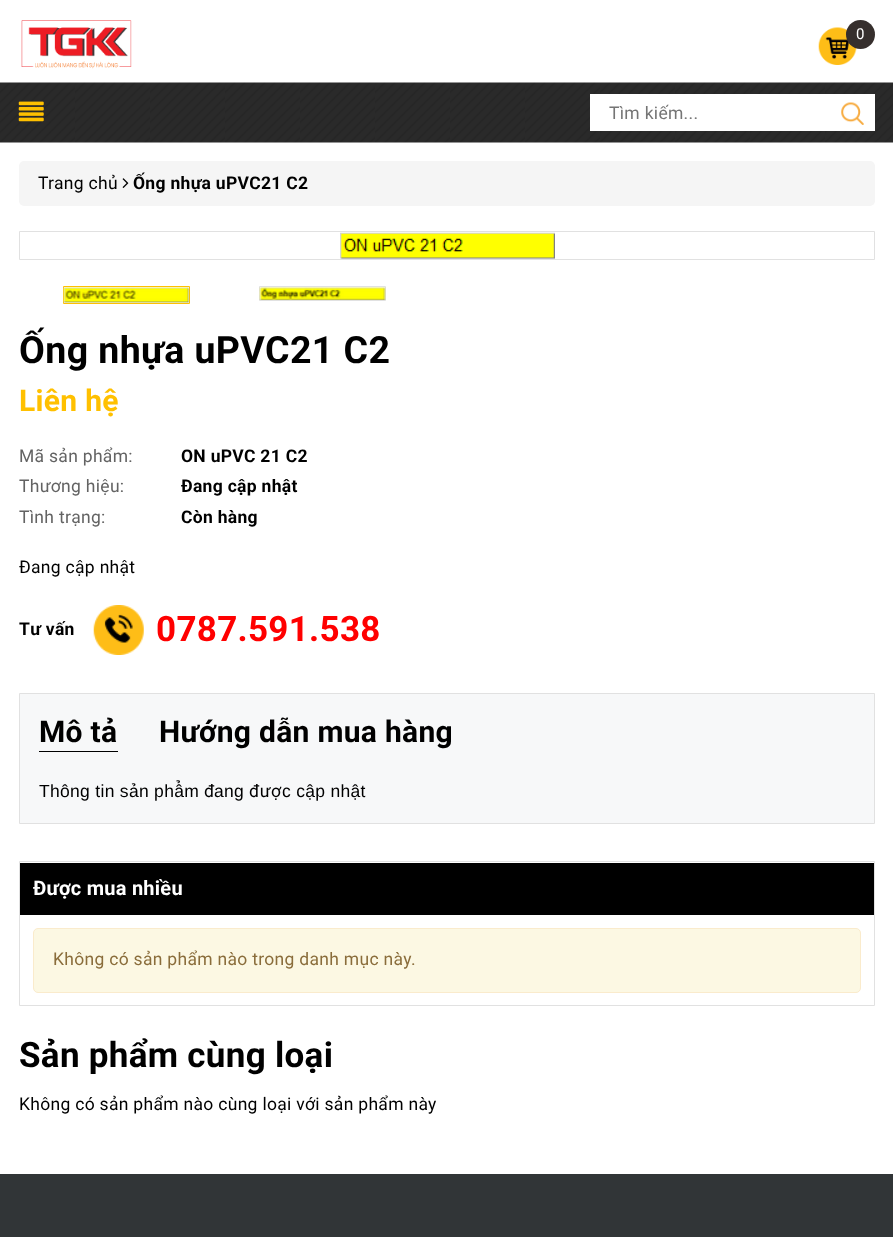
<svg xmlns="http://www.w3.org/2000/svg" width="893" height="1237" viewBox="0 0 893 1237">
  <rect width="100%" height="100%" fill="#fff"/>
  <image x="21" y="20" width="111" height="49" href="img/1.png"/>
  <image x="818" y="27" width="39" height="38" href="img/2.png"/>
  <circle cx="860.5" cy="34.5" r="14.5" fill="#362f2d"/>
  <image x="0" y="82" width="893" height="61" href="img/3.png"/>
  <image x="18" y="101" width="26" height="21" href="img/4.png"/>
  <path d="M590 94h285v37H590z" fill="#fff"/>
  <image x="841" y="102" width="23" height="23" href="img/5.png"/>
  <rect x="19" y="161" width="856" height="45" rx="5" fill="#f5f5f5"/>
  <image x="122" y="178" width="7" height="10" href="img/6.png"/>
  <path d="M19.5 231.5h855v28H19.5z" fill="none" stroke="#e1e1e1"/>
  <image x="340" y="232" width="215" height="27" href="img/7.png"/>
  <path d="M63.5 286.5h126v17H63.5z" fill="none" stroke="#ffc000"/>
  <image x="63" y="287" width="127" height="16" href="img/8.png"/>
  <path d="M259.5 286.5h126v14H259.5z" fill="none" stroke="#e1e1e1"/>
  <image x="259" y="287" width="127" height="13" href="img/9.png"/>
  <image x="93" y="605" width="51" height="50" href="img/10.png"/>
  <path d="M19.5 693.5h855v130H19.5z" fill="#f7f8f9" stroke="#e1e1e1"/>
  <path d="M39 751h79v1H39z" fill="#000"/>
  <path d="M19.5 861.5h855v144H19.5z" fill="none" stroke="#e1e1e1"/>
  <path d="M20 863h854v52H20z" fill="#000"/>
  <rect x="33.5" y="928.5" width="827" height="64" rx="4.5" fill="#fcf8e3" stroke="#faebcc"/>
  <path d="M0 1174h893v63H0z" fill="#313537"/>
  <text x="856" y="39" font-family="Roboto" font-size="15" letter-spacing="0.3" fill="#fff">0</text>
  <text x="609" y="119" font-family="Roboto" font-size="17.5" letter-spacing="0.3" fill="#757575">Tìm kiếm...</text>
  <text x="38" y="189" font-family="Roboto" font-size="17.5" letter-spacing="0.3" fill="#000">Trang chủ</text>
  <text x="133" y="189" font-family="Roboto" font-size="17.5" font-weight="bold" letter-spacing="0.3" fill="#000">Ống nhựa uPVC21 C2</text>
  <text x="19" y="363" font-family="Roboto" font-size="37.5" font-weight="bold" letter-spacing="0.4" fill="#000">Ống nhựa uPVC21 C2</text>
  <text x="19" y="411" font-family="Roboto" font-size="30" font-weight="bold" letter-spacing="0.3" fill="#ffc000">Liên hệ</text>
  <text x="19" y="462" font-family="Roboto" font-size="17.5" letter-spacing="0.3" fill="#636363">Mã sản phẩm:</text>
  <text x="181" y="462" font-family="Roboto" font-size="17.5" font-weight="bold" letter-spacing="0.3" fill="#000">ON uPVC 21 C2</text>
  <text x="19" y="492" font-family="Roboto" font-size="17.5" letter-spacing="0.3" fill="#636363">Thương hiệu:</text>
  <text x="181" y="492" font-family="Roboto" font-size="17.5" font-weight="bold" letter-spacing="0.3" fill="#000">Đang cập nhật</text>
  <text x="19" y="523" font-family="Roboto" font-size="17.5" letter-spacing="0.3" fill="#636363">Tình trạng:</text>
  <text x="181" y="523" font-family="Roboto" font-size="17.5" font-weight="bold" letter-spacing="0.3" fill="#000">Còn hàng</text>
  <text x="19" y="573" font-family="Roboto" font-size="17.5" letter-spacing="0.3" fill="#000">Đang cập nhật</text>
  <text x="19" y="635" font-family="Roboto" font-size="17.5" font-weight="bold" letter-spacing="0.3" fill="#000">Tư vấn</text>
  <text x="156" y="641" font-family="Roboto" font-size="35" font-weight="bold" letter-spacing="0.3" fill="#f00">0787.591.538</text>
  <g font-family="Roboto" font-size="30" font-weight="bold" letter-spacing="0.3" fill="#000">
    <text x="39" y="742">Mô tả</text>
    <text x="159" y="742">Hướng dẫn mua hàng</text>
  </g>
  <text x="39" y="797" font-family="Liberation Sans" font-size="17.5" letter-spacing="0.3" fill="#000">Thông tin sản phẩm</text>
  <text x="204" y="797" font-family="Roboto" font-size="17.5" letter-spacing="0.3" fill="#000">đ</text>
  <text x="214" y="797" font-family="Liberation Sans" font-size="17.5" letter-spacing="0.3" fill="#000">ang</text>
  <text x="249" y="797" font-family="Roboto" font-size="17.5" letter-spacing="0.3" fill="#000">đượ</text>
  <text x="282" y="797" font-family="Liberation Sans" font-size="17.5" letter-spacing="0.3" fill="#000">c cập nhật</text>
  <text x="33" y="895" font-family="Roboto" font-size="20" font-weight="bold" letter-spacing="0.25" fill="#fff">Được mua nhiều</text>
  <text x="53" y="965" font-family="Roboto" font-size="17.5" letter-spacing="0.3" fill="#8a6d3b">Không có sản phẩm nào trong danh mục này.</text>
  <text x="19" y="1067" font-family="Roboto" font-size="35" font-weight="bold" letter-spacing="0.3" fill="#000">Sản phẩm cùng loại</text>
  <text x="19" y="1110" font-family="Roboto" font-size="17.5" letter-spacing="0.3" fill="#000">Không có sản phẩm nào cùng loại với sản phẩm này</text>
</svg>
